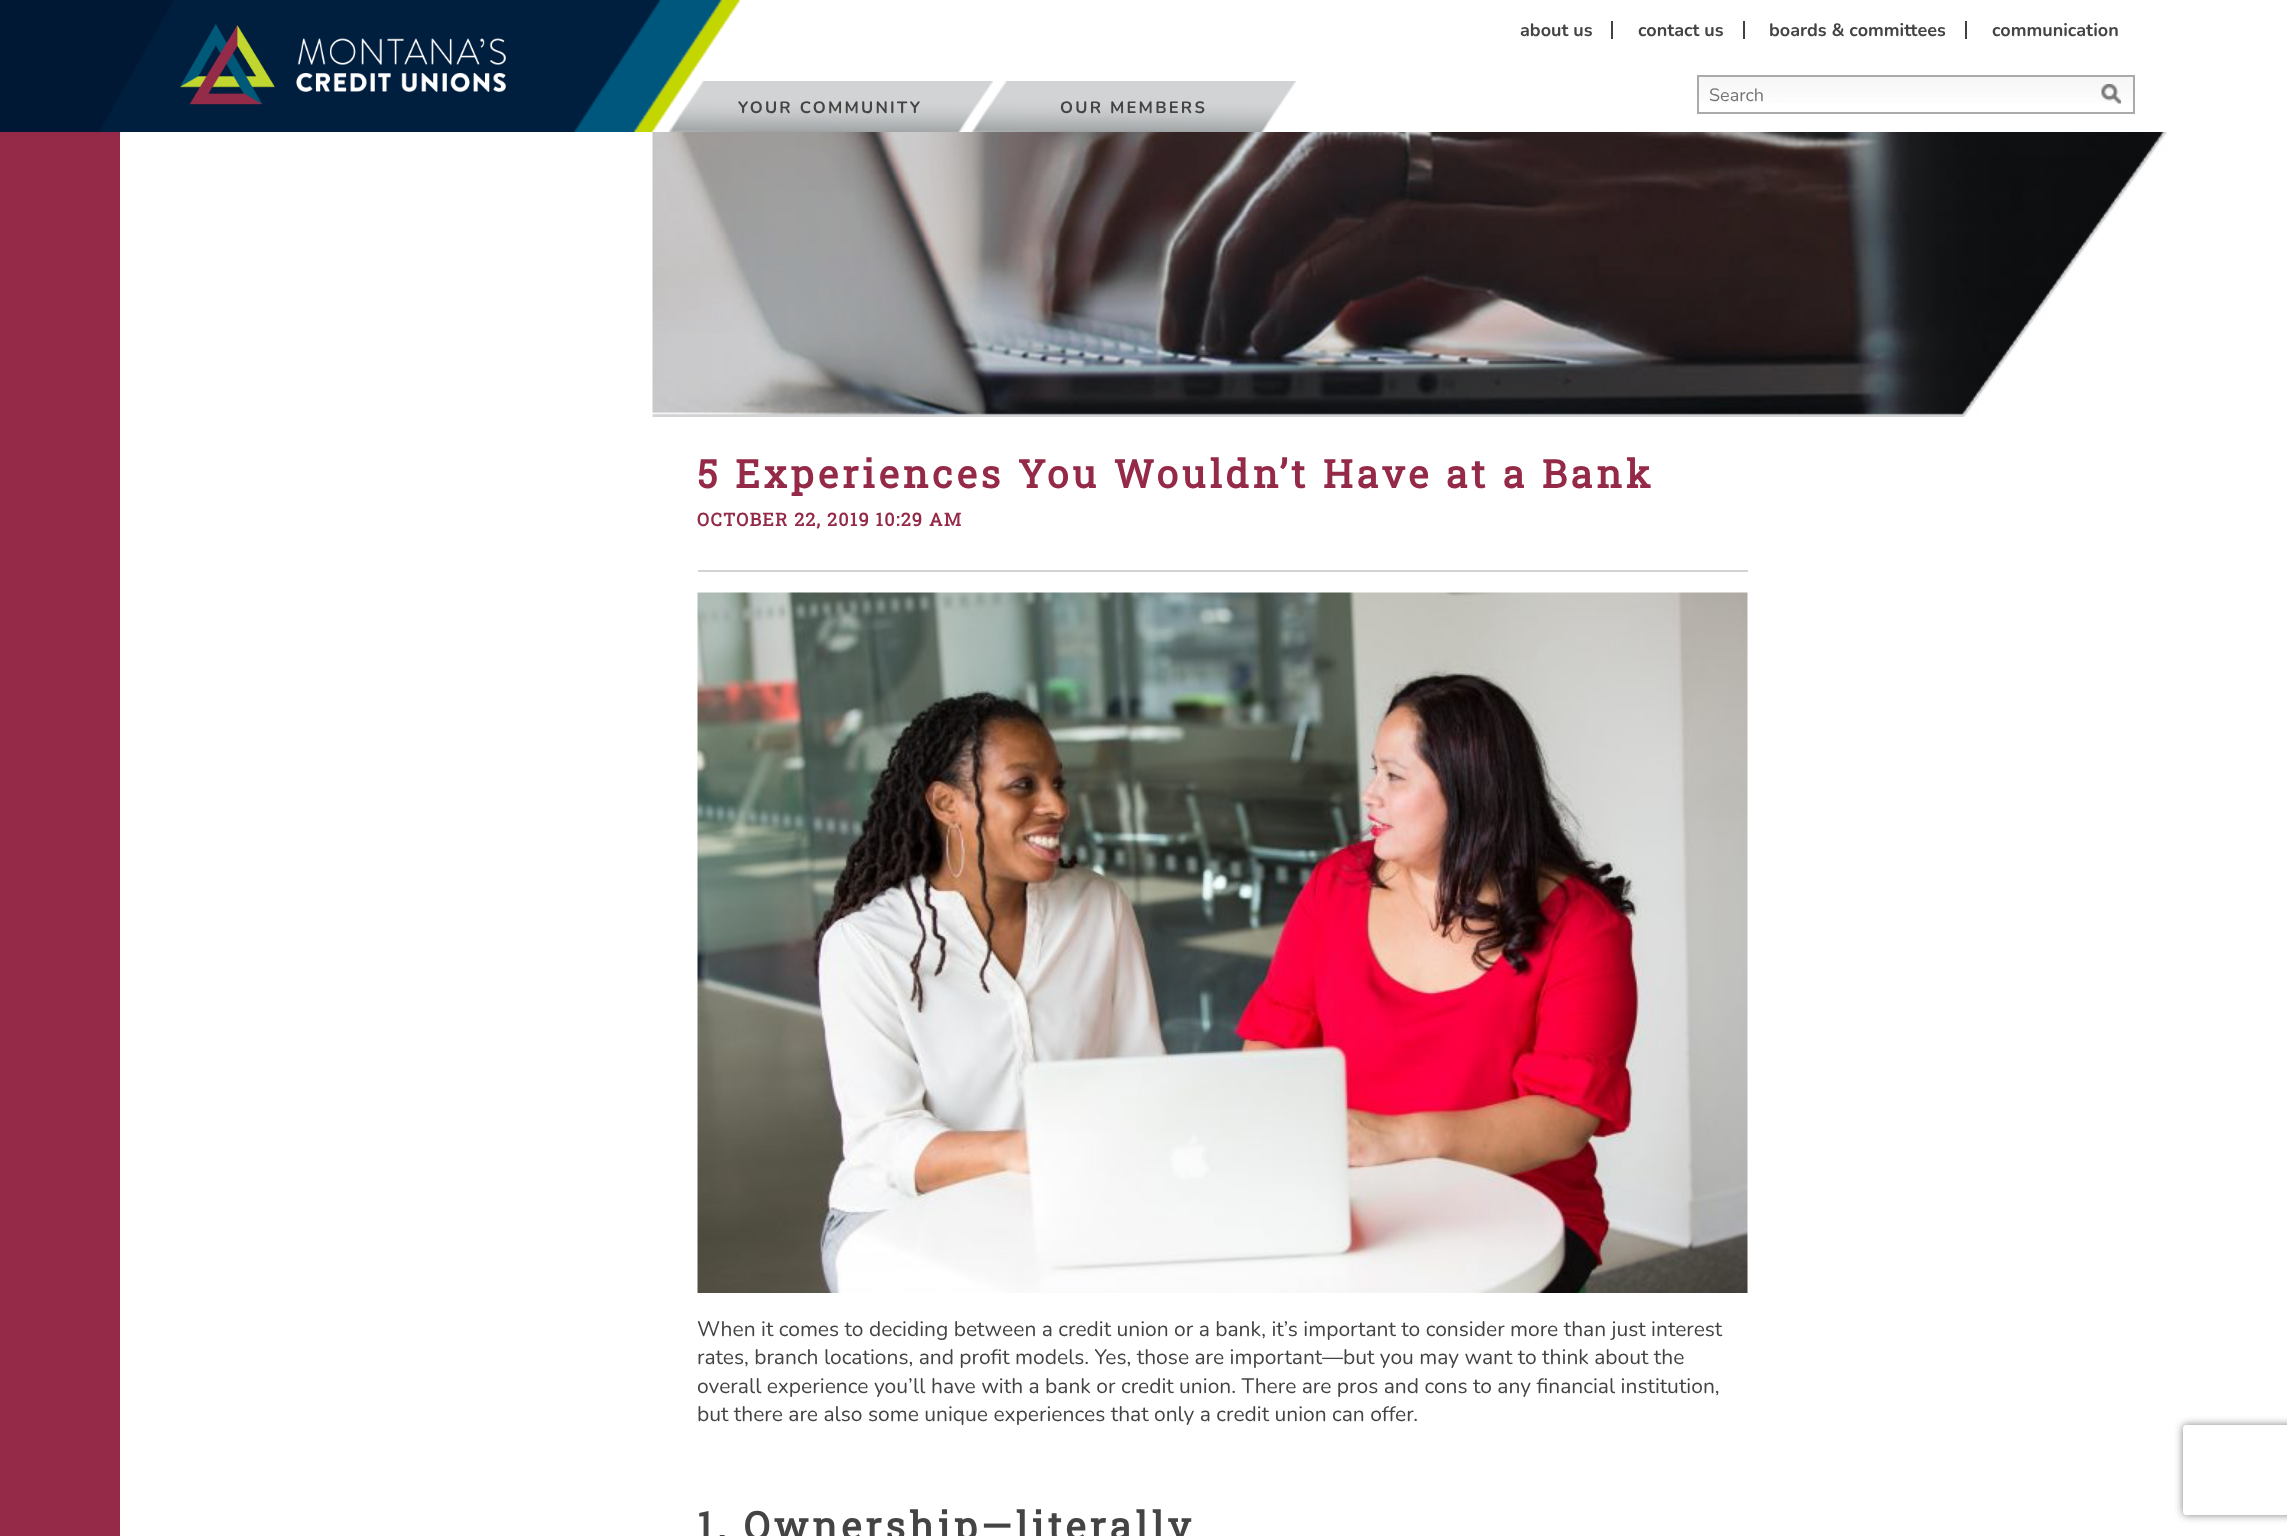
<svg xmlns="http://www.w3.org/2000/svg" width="2287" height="1536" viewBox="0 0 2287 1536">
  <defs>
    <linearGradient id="g1" gradientUnits="userSpaceOnUse" x1="1916" y1="76" x2="1916" y2="113"><stop offset="0" stop-color="#f6f6f6"/><stop offset="1" stop-color="#fff"/></linearGradient>
    <clipPath id="clip1"><path d="M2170 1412H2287V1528H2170ZM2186 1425H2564C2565.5 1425 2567 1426.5 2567 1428V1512C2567 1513.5 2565.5 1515 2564 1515H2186C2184.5 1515 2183 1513.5 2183 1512V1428C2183 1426.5 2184.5 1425 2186 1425Z" clip-rule="evenodd"/></clipPath>
  </defs>
  <rect width="100%" height="100%" fill="#fff"/>
  <path d="M0 0h99v132H0z" fill="#001834"/>
  <image x="99" y="0" width="642" height="132" href="img/1.png"/>
  <image x="180" y="24" width="326" height="81" href="img/2.png"/>
  <path d="M1611 21h2v18H1611z" fill="#414042"/>
  <path d="M1743 21h2v18H1743z" fill="#414042"/>
  <path d="M1965 21h2v18H1965z" fill="#414042"/>
  <path d="M1699 77h434v26H1699z" fill="url(#g1)"/>
  <path d="M1698 76h436v37H1698z" fill="none" stroke="#aaa" stroke-width="2"/>
  <image x="2101" y="84" width="20" height="20" href="img/3.png"/>
  <image x="669" y="81" width="324" height="51" href="img/4.png"/>
  <image x="972" y="81" width="324" height="51" href="img/5.png"/>
  <path d="M0 132h120v1404H0z" fill="#942a47"/>
  <image x="652" y="132" width="1516" height="285" href="img/6.png"/>
  <path d="M698 570h1050v2H698z" fill="#d1d3d4"/>
  <image x="697" y="592" width="1051" height="701" href="img/7.png"/>
  <g clip-path="url(#clip1)">
    <rect x="2183" y="1425" width="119" height="90" rx="3" fill="#808080" filter="blur(4px)"/>
  </g>
  <g font-family="Nunito" font-size="18" font-weight="bold" fill="#444">
    <text x="1520" y="36">about us</text>
    <text x="1638" y="36">contact us</text>
    <text x="1769" y="36">boards &amp; committees</text>
    <text x="1992" y="36">communication</text>
  </g>
  <text x="1709" y="101" font-family="Nunito" font-size="18" fill="#757575">Search</text>
  <g font-family="Nunito" font-size="16.5" font-weight="bold" letter-spacing="2.25" fill="#444">
    <text x="738" y="113">YOUR COMMUNITY</text>
    <text x="1060" y="113">OUR MEMBERS</text>
  </g>
  <text x="697" y="488" font-family="Roboto Slab" font-size="39" font-weight="bold" letter-spacing="3.9" fill="#942a47">5 Experiences You Wouldn’t Have at a Bank</text>
  <text x="697" y="526" font-family="Roboto Slab" font-size="18" font-weight="bold" letter-spacing="1.25" fill="#942a47">OCTOBER 22, 2019 10:29 AM</text>
  <g font-family="Nunito" font-size="21" fill="#444">
    <text x="697" y="1336">When it comes to deciding between a credit union or a bank, it’s important to consider more than just interest</text>
    <text x="697" y="1364">rates, branch locations, and profit models. Yes, those are important—but you may want to think about the</text>
    <text x="697" y="1393">overall experience you’ll have with a bank or credit union. There are pros and cons to any financial institution,</text>
    <text x="697" y="1421">but there are also some unique experiences that only a credit union can offer.</text>
  </g>
  <text x="697" y="1540" font-family="Roboto Slab" font-size="39" font-weight="bold" letter-spacing="3.9" fill="#444">1. Ownership—literally</text>
</svg>
